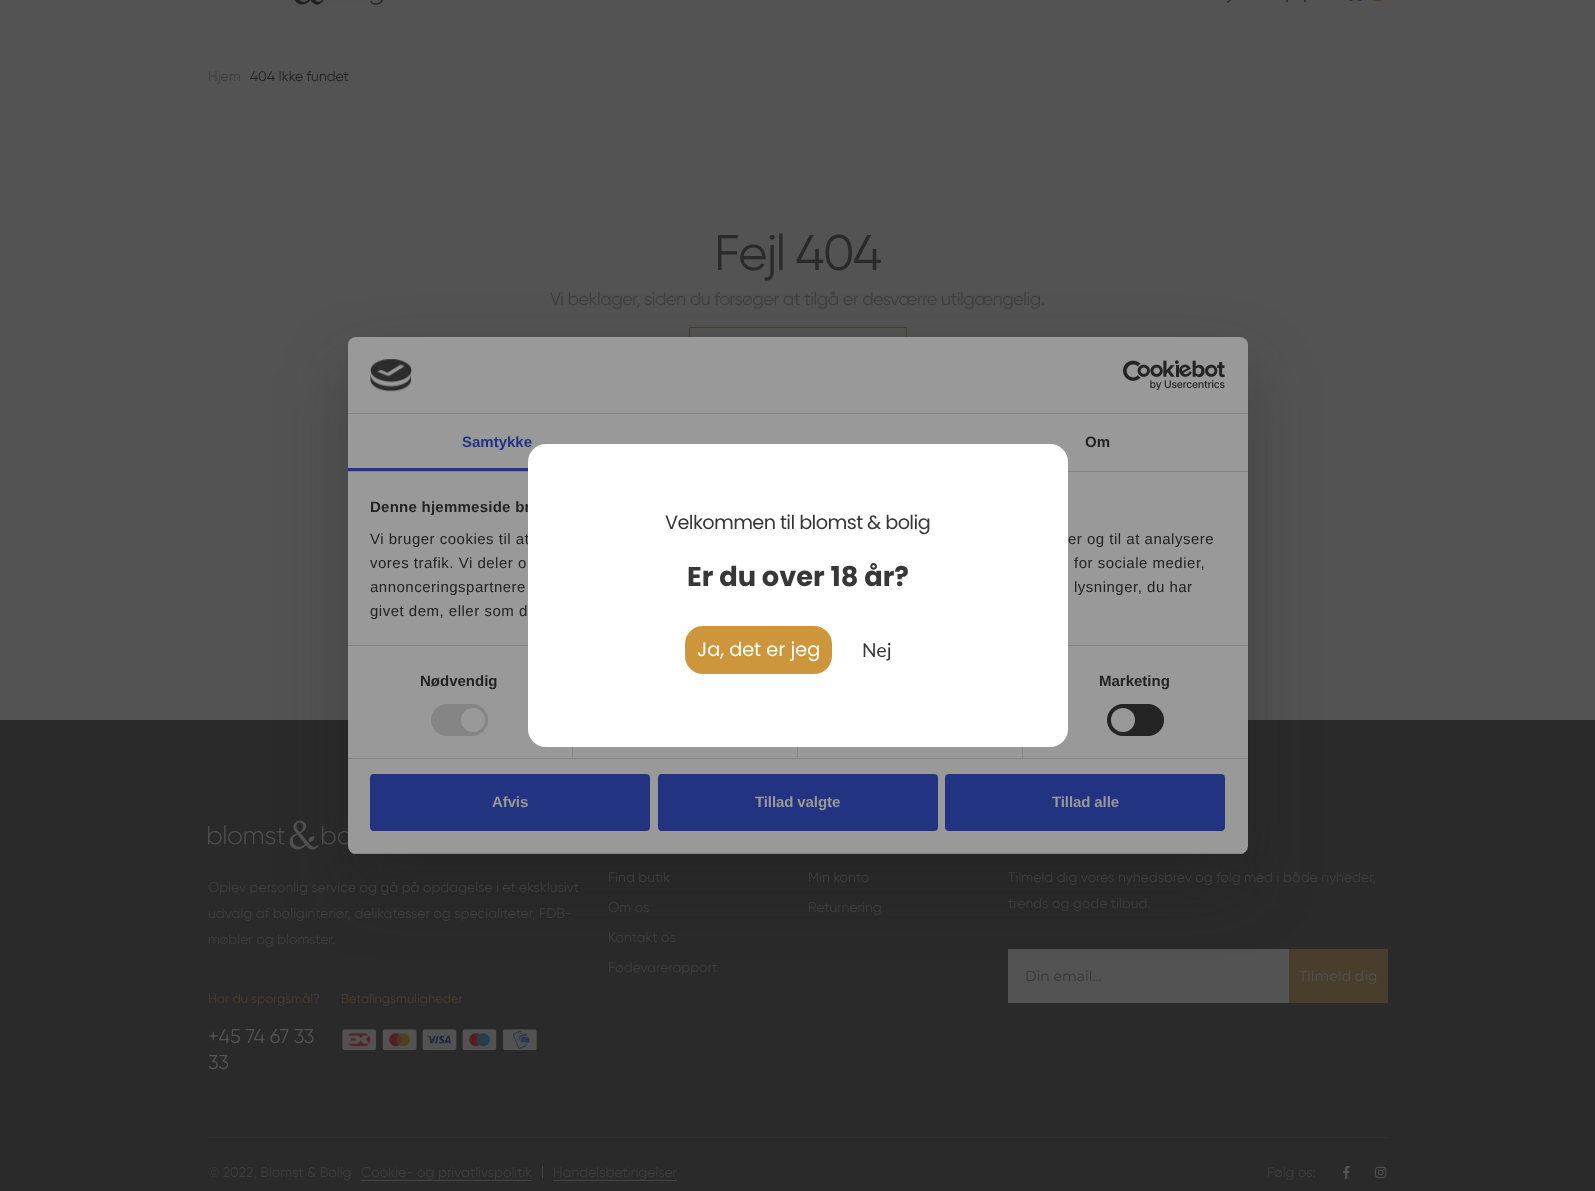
<svg xmlns="http://www.w3.org/2000/svg" width="1595" height="1191" viewBox="0 0 1595 1191">
  <defs>
    <clipPath id="clip1"><rect x="348" y="337" width="900" height="517" rx="8"/></clipPath>
  </defs>
  <rect width="100%" height="100%" fill="#535353"/>
  <image x="294" y="0" width="89" height="5" href="img/1.png"/>
  <image x="1227" y="0" width="5" height="3" href="img/2.png"/>
  <image x="1285" y="0" width="22" height="3" href="img/3.png"/>
  <image x="1349" y="0" width="13" height="2" href="img/4.png"/>
  <rect x="1368" y="-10" width="20" height="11" rx="10" fill="#493e2c"/>
  <path d="M689.5 327.5h217v39H689.5z" fill="none" stroke="#493e2c"/>
  <path d="M0 720h1595v471H0z" fill="#2a2a2a"/>
  <image x="208" y="820" width="140" height="30" href="img/7.png"/>
  <path d="M1008 949h281v54H1008z" fill="#535353"/>
  <path d="M1289 949h99v54H1289z" fill="#493e2c"/>
  <rect x="348" y="369" width="900" height="517" rx="8" fill="#1a1a1a4d" filter="blur(34px)"/>
  <rect x="348" y="337" width="900" height="517" rx="8" fill="#999"/>
  <path d="M348 413h900v1H348z" fill="#858585"/>
  <image x="370" y="359" width="42" height="33" href="img/5.png"/>
  <image x="1123" y="360" width="102" height="30" href="img/6.png"/>
  <path d="M348 471h900v1H348z" fill="#858585"/>
  <path d="M348 468h180v3H348z" fill="#223381"/>
  <path d="M348 645h900v1H348z" fill="#858585"/>
  <path d="M348 758h900v1H348z" fill="#858585"/>
  <path d="M572 747h1v11H572z" fill="#858585"/>
  <rect x="431" y="704" width="57" height="32" rx="16" fill="#858585"/>
  <circle cx="473" cy="720" r="12" fill="#999"/>
  <rect x="1107" y="704" width="57" height="32" rx="16" fill="#242424"/>
  <circle cx="1123" cy="720" r="12" fill="#999"/>
  <path d="M797 747h1v11H797z" fill="#858585"/>
  <path d="M1022 747h1v11H1022z" fill="#858585"/>
  <g clip-path="url(#clip1)">
    <path d="M348 853h900v1H348z" fill="#858585"/>
  </g>
  <rect x="371" y="775" width="278" height="55" rx="3" fill="#223381" stroke="#223381" stroke-width="2"/>
  <rect x="659" y="775" width="278" height="55" rx="3" fill="#223381" stroke="#223381" stroke-width="2"/>
  <rect x="946" y="775" width="278" height="55" rx="3" fill="#223381" stroke="#223381" stroke-width="2"/>
  <image x="342" y="1027" width="196" height="24" href="img/8.png"/>
  <path d="M208 1137h1180v1H208z" fill="#303131"/>
  <path d="M361 1180h171v1H361z" fill="#444"/>
  <path d="M542 1166h1v12H542z" fill="#444"/>
  <path d="M553 1180h124v1H553z" fill="#444"/>
  <image x="1343" y="1166" width="7" height="13" href="img/9.png"/>
  <image x="1375" y="1166" width="12" height="13" href="img/10.png"/>
  <text x="208" y="81" font-family="Gilroy" font-size="14" fill="#3e3e3e">Hjem</text>
  <text x="250" y="81" font-family="Gilroy" font-size="14" fill="#232323">404 Ikke fundet</text>
  <text x="714" y="270" font-family="Gilroy" font-size="50" letter-spacing="-1.5" fill="#2a2a2a">Fejl 404</text>
  <text x="550" y="305" font-family="Gilroy" font-size="18" letter-spacing="-0.45" fill="#3e3e3e">Vi beklager, siden du forsøger at tilgå er desværre utilgængelig.</text>
  <text x="462" y="447" font-family="Liberation Sans" font-size="15" font-weight="bold" fill="#223381">Samtykke</text>
  <text x="1085" y="447" font-family="Liberation Sans" font-size="15" font-weight="bold" fill="#232323">Om</text>
  <text x="370" y="512" font-family="Liberation Sans" font-size="15" font-weight="bold" letter-spacing="0.25" fill="#232323">Denne hjemmeside br</text>
  <g font-family="Liberation Sans" font-size="15" letter-spacing="0.5" fill="#232323">
    <text x="370" y="544">Vi bruger cookies til at</text>
    <text x="1068" y="544">er og til at analysere</text>
    <text x="370" y="568">vores trafik. Vi deler o</text>
    <text x="1074" y="568">for sociale medier,</text>
    <text x="370" y="592">annonceringspartnere</text>
    <text x="1074" y="592">lysninger, du har</text>
    <text x="370" y="616">givet dem, eller som d</text>
  </g>
  <g font-family="Liberation Sans" font-size="15" font-weight="bold" fill="#232323">
    <text x="420" y="686">Nødvendig</text>
    <text x="1099" y="686">Marketing</text>
  </g>
  <g font-family="Liberation Sans" font-size="15" font-weight="bold" letter-spacing="-0.1" fill="#999">
    <text x="492" y="807">Afvis</text>
    <text x="755" y="807">Tillad valgte</text>
    <text x="1052" y="807">Tillad alle</text>
  </g>
  <rect x="528" y="444" width="540" height="303" rx="18" fill="#fff"/>
  <text x="665" y="529" font-family="Poppins" font-size="19.25" letter-spacing="-0.6" fill="#373737">Velkommen til blomst &amp; bolig</text>
  <text x="687" y="586" font-family="Poppins" font-size="27.25" font-weight="bold" fill="#373737">Er du over 18 år?</text>
  <rect x="685" y="626" width="147" height="48" rx="18" fill="#ce963c"/>
  <text x="697" y="656" font-family="Poppins" font-size="19.25" fill="#fff">Ja, det er jeg</text>
  <text x="862" y="657" font-family="Lato" font-size="19.25" fill="#373737">Nej</text>
  <g font-family="Gilroy" font-size="14" fill="#3e3e3e">
    <text x="208" y="892">Oplev personlig service og gå på opdagelse i et eksklusivt</text>
    <text x="208" y="918">udvalg af boliginteriør, delikatesser og specialiteter, FDB-</text>
    <text x="208" y="944">møbler og blomster.</text>
  </g>
  <text x="208" y="1003" font-family="Gilroy" font-size="13" fill="#493e2c">Har du spørgsmål?</text>
  <g font-family="Gilroy" font-size="20" letter-spacing="-0.25" fill="#535353">
    <text x="208" y="1043">+45 74 67 33</text>
    <text x="208" y="1069">33</text>
  </g>
  <text x="341" y="1003" font-family="Gilroy" font-size="13" fill="#493e2c">Betalingsmuligheder</text>
  <g font-family="Gilroy" font-size="14" fill="#3e3e3e">
    <text x="608" y="882">Find butik</text>
    <text x="608" y="912">Om os</text>
    <text x="608" y="942">Kontakt os</text>
    <text x="608" y="972">Fødevarerapport</text>
    <text x="808" y="882">Min konto</text>
    <text x="808" y="912">Returnering</text>
    <text x="1008" y="882">Tilmeld dig vores nyhedsbrev og følg med i både nyheder,</text>
    <text x="1008" y="908">trends og gode tilbud.</text>
  </g>
  <text x="1025" y="981" font-family="Montserrat" font-size="14" fill="#373737">Din email...</text>
  <text x="1299" y="981" font-family="Montserrat" font-size="14" fill="#535353">Tilmeld dig</text>
  <g font-family="Gilroy" font-size="14" fill="#3e3e3e">
    <text x="208" y="1177">© 2022, Blomst &amp; Bolig</text>
    <text x="361" y="1177">Cookie- og privatlivspolitik</text>
    <text x="553" y="1177">Handelsbetingelser</text>
    <text x="1267" y="1177">Følg os:</text>
  </g>
</svg>
